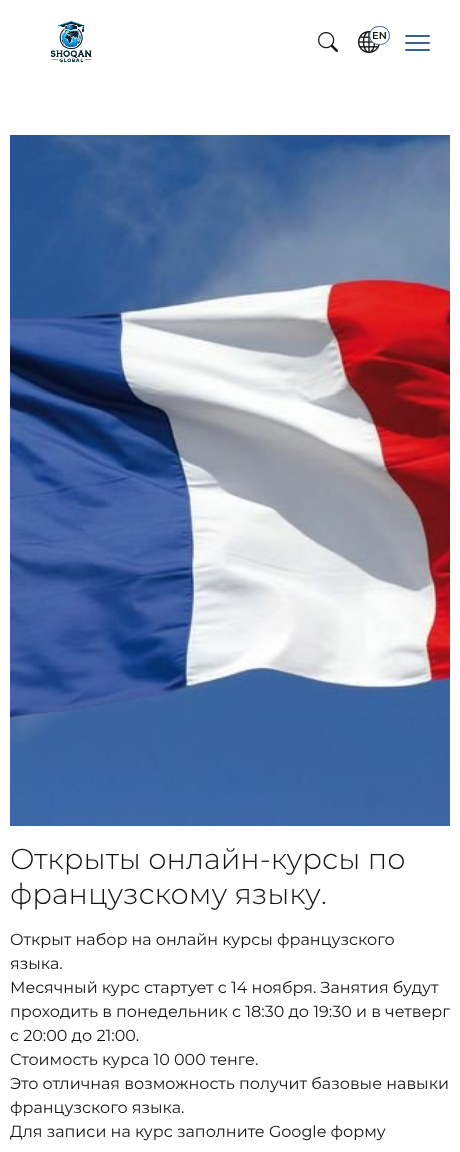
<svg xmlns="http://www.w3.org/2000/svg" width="460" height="1152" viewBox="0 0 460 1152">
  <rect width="100%" height="100%" fill="#fff"/>
  <image x="50" y="20" width="42" height="43" href="img/1.png"/>
  <image x="318" y="32" width="20" height="20" href="img/2.png"/>
  <image x="358" y="31" width="22" height="22" href="img/3.png"/>
  <rect x="369.5" y="26.5" width="20" height="18" rx="9" fill="#fff" stroke="#396293"/>
  <rect x="405" y="35" width="25" height="2" rx="1" fill="#396293"/>
  <rect x="405" y="42" width="25" height="2" rx="1" fill="#396293"/>
  <rect x="405" y="49" width="25" height="2" rx="1" fill="#396293"/>
  <image x="10" y="135" width="440" height="691" href="img/4.png"/>
  <text x="372" y="39" font-family="Montserrat" font-size="10" font-weight="600" fill="#141414">EN</text>
  <g font-family="Montserrat" font-size="28.9" font-weight="300" fill="#141414">
    <text x="10" y="869">Открыты онлайн-курсы по</text>
    <text x="10" y="904">французскому языку.</text>
  </g>
  <g font-family="Montserrat" font-size="16" fill="#141414">
    <text x="10" y="945">Открыт набор на онлайн курсы французского</text>
    <text x="10" y="969">языка.</text>
    <text x="10" y="993">Месячный курс стартует с 14 ноября. Занятия будут</text>
    <text x="10" y="1017">проходить в понедельник с 18:30 до 19:30 и в четверг</text>
    <text x="10" y="1041">с 20:00 до 21:00.</text>
    <text x="10" y="1065">Стоимость курса 10 000 тенге.</text>
    <text x="10" y="1089">Это отличная возможность получит базовые навыки</text>
    <text x="10" y="1113">французского языка.</text>
    <text x="10" y="1137">Для записи на курс заполните Google форму</text>
  </g>
</svg>
